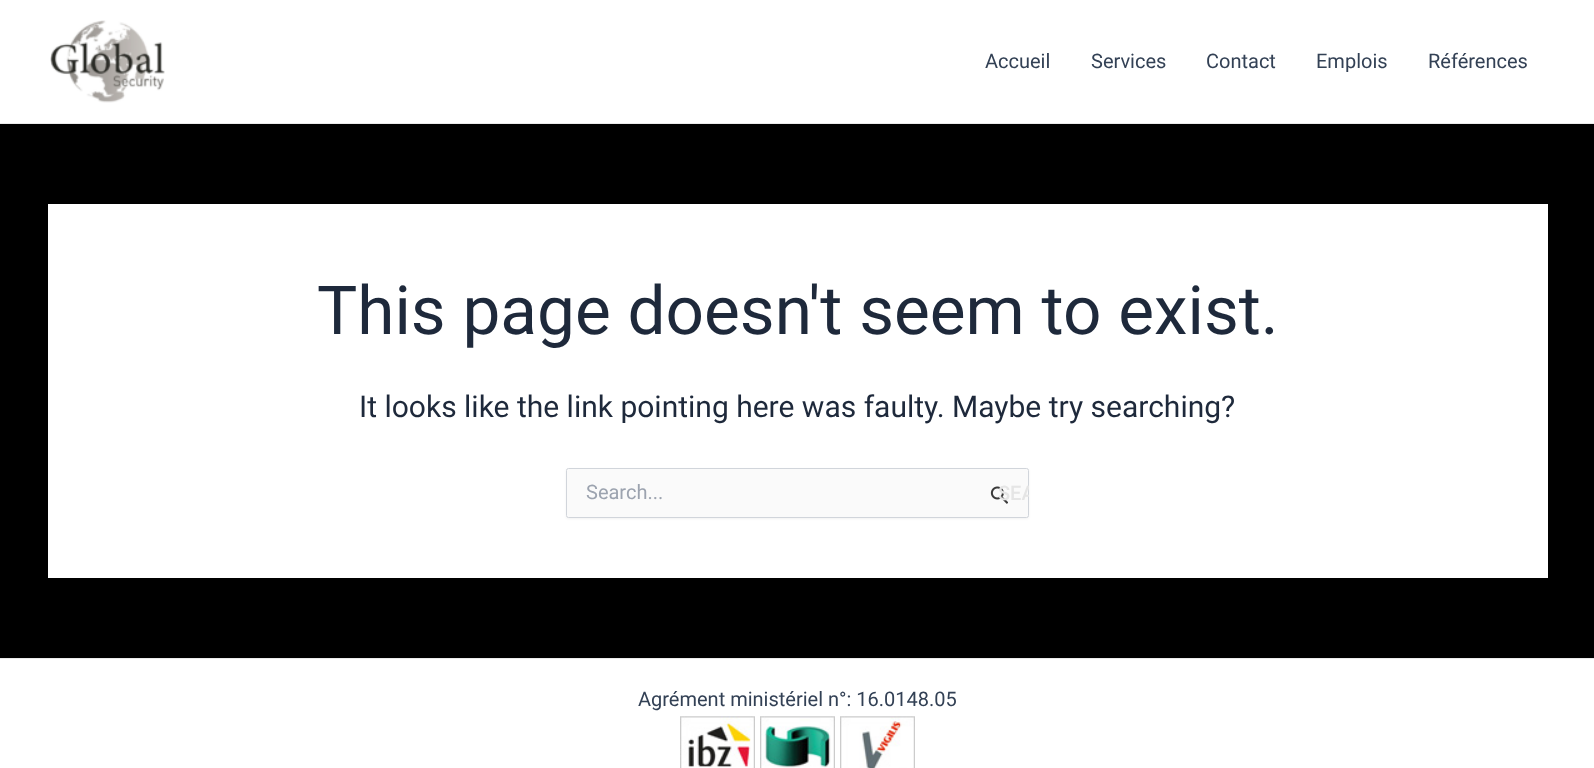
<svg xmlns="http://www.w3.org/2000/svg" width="1594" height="768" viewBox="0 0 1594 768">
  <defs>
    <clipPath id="clip1"><rect x="973" y="468" width="56" height="52" rx="2.5"/></clipPath>
  </defs>
  <rect width="100%" height="100%" fill="#000"/>
  <path d="M0 0h1594v123H0z" fill="#fff"/>
  <path d="M0 123h1594v1H0z" fill="#eaeaea"/>
  <image x="50" y="20" width="115" height="83" href="img/1.png"/>
  <path d="M48 204h1500v374H48z" fill="#fff"/>
  <rect x="566" y="469" width="463" height="50" rx="2.5" fill="#0000000d" filter="blur(1px)"/>
  <rect x="566.5" y="468.5" width="462" height="49" rx="2" fill="#fafafa" stroke="#d1d5db"/>
  <image x="990" y="486" width="18" height="18" href="img/2.png"/>
  <path d="M0 659h1594v109H0z" fill="#fff"/>
  <path d="M0 658h1594v1H0z" fill="#eaeaea"/>
  <image x="680" y="716" width="75" height="52" href="img/3.png"/>
  <image x="760" y="716" width="75" height="52" href="img/4.png"/>
  <image x="840" y="716" width="75" height="52" href="img/5.png"/>
  <g font-family="Roboto" font-size="20" fill="#334155">
    <text x="985" y="68">Accueil</text>
    <text x="1091" y="68">Services</text>
    <text x="1206" y="68">Contact</text>
    <text x="1316" y="68">Emplois</text>
    <text x="1428" y="68">Références</text>
  </g>
  <text x="317" y="334" font-family="Roboto" font-size="67.5" fill="#1e293b">This page doesn't seem to exist.</text>
  <text x="359" y="417" font-family="Roboto" font-size="30" fill="#1e293b">It looks like the link pointing here was faulty. Maybe try searching?</text>
  <text x="586" y="499" font-family="Roboto" font-size="20" fill="#9ca3af">Search...</text>
  <g clip-path="url(#clip1)">
    <text x="998" y="500" font-family="Roboto" font-size="20" font-weight="500" fill="#e5e5e5">SEA</text>
  </g>
  <text x="638" y="706" font-family="Roboto" font-size="20" fill="#334155">Agrément ministériel n°: 16.0148.05</text>
</svg>
